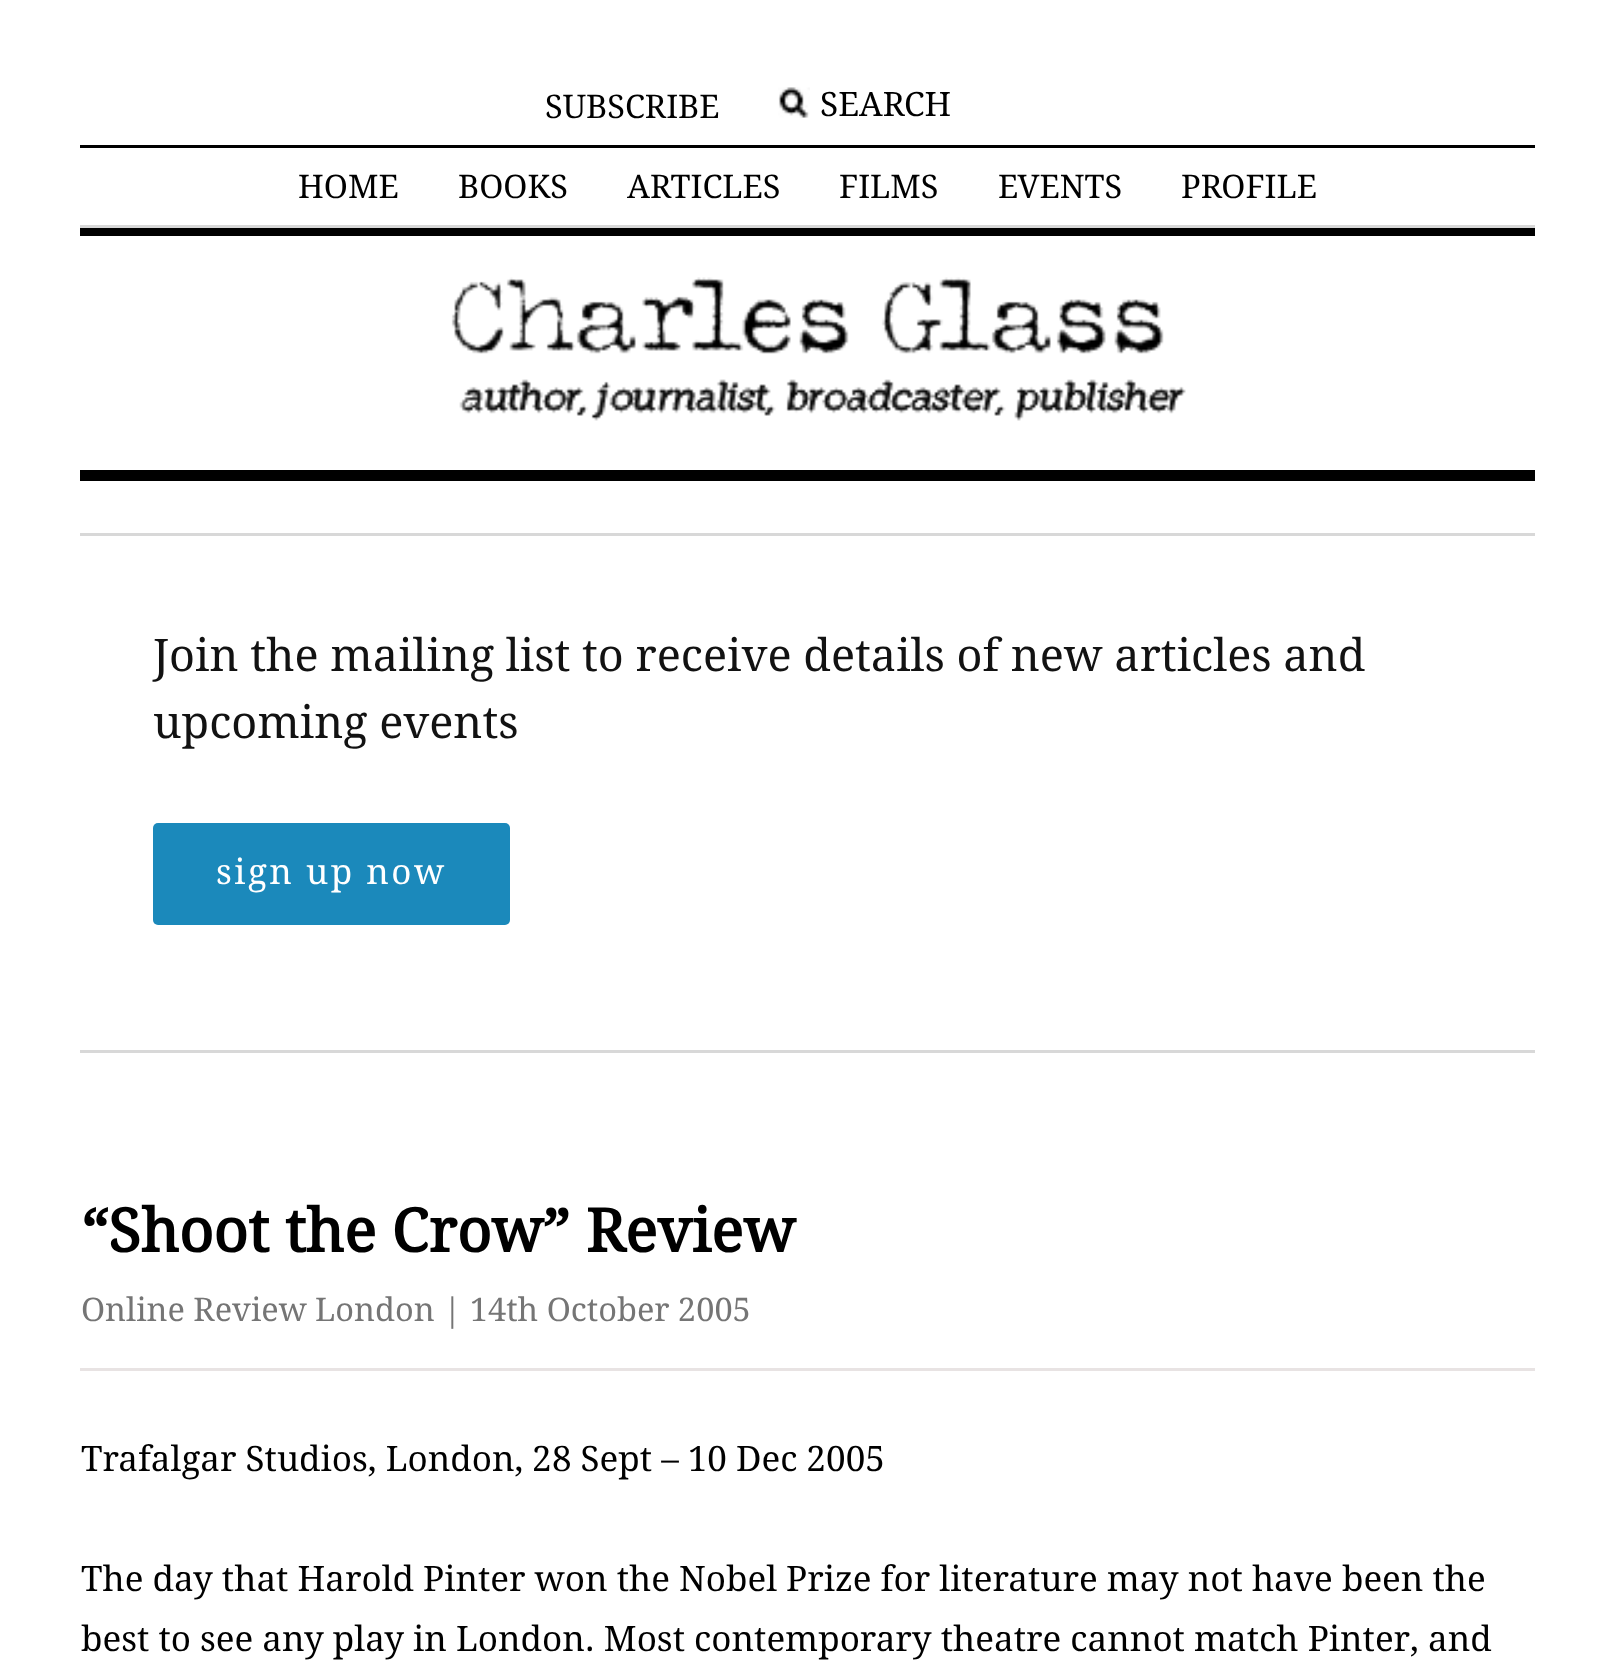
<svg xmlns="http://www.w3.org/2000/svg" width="1613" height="1674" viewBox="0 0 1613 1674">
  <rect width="100%" height="100%" fill="#fff"/>
  <image x="778" y="87" width="32" height="31" href="img/1.png"/>
  <path d="M80 145h1455v3H80z" fill="#000"/>
  <path d="M80 225h1455v3H80z" fill="#d8d8d8"/>
  <path d="M80 228h1455v8H80z" fill="#000"/>
  <path d="M80 470h1455v11H80z" fill="#000"/>
  <image x="451" y="277" width="735" height="144" href="img/2.png"/>
  <path d="M80 533h1455v3H80z" fill="#d8d8d8"/>
  <path d="M80 1050h1455v3H80z" fill="#d8d8d8"/>
  <rect x="153" y="823" width="357" height="102" rx="5" fill="#1b89bb"/>
  <path d="M80 1368h1455v3H80z" fill="#e8e3e3"/>
  <text x="545" y="118" font-family="Droid Serif" font-size="32.5" fill="#000">SUBSCRIBE</text>
  <text x="820" y="116" font-family="Droid Serif" font-size="33.5" fill="#000">SEARCH</text>
  <g font-family="Droid Serif" font-size="32.5" fill="#000">
    <text x="298" y="198">HOME</text>
    <text x="458" y="198">BOOKS</text>
    <text x="627" y="198">ARTICLES</text>
    <text x="839" y="198">FILMS</text>
    <text x="998" y="198">EVENTS</text>
    <text x="1181" y="198">PROFILE</text>
  </g>
  <g font-family="Droid Serif" font-size="45" fill="#121212">
    <text x="153" y="671">Join the mailing list to receive details of new articles and</text>
    <text x="153" y="738">upcoming events</text>
  </g>
  <text x="216" y="884" font-family="Droid Serif" font-size="35" letter-spacing="2.5" fill="#fff">sign up now</text>
  <text x="81" y="1252" font-family="Droid Serif" font-size="60" font-weight="bold" fill="#000">“Shoot the Crow” Review</text>
  <text x="81" y="1321" font-family="Droid Serif" font-size="32.5" fill="#757575">Online Review London | 14th October 2005</text>
  <g font-family="Droid Serif" font-size="35" fill="#000">
    <text x="81" y="1471">Trafalgar Studios, London, 28 Sept – 10 Dec 2005</text>
    <text x="81" y="1591">The day that Harold Pinter won the Nobel Prize for literature may not have been the</text>
    <text x="81" y="1651">best to see any play in London. Most contemporary theatre cannot match Pinter, and</text>
  </g>
</svg>
